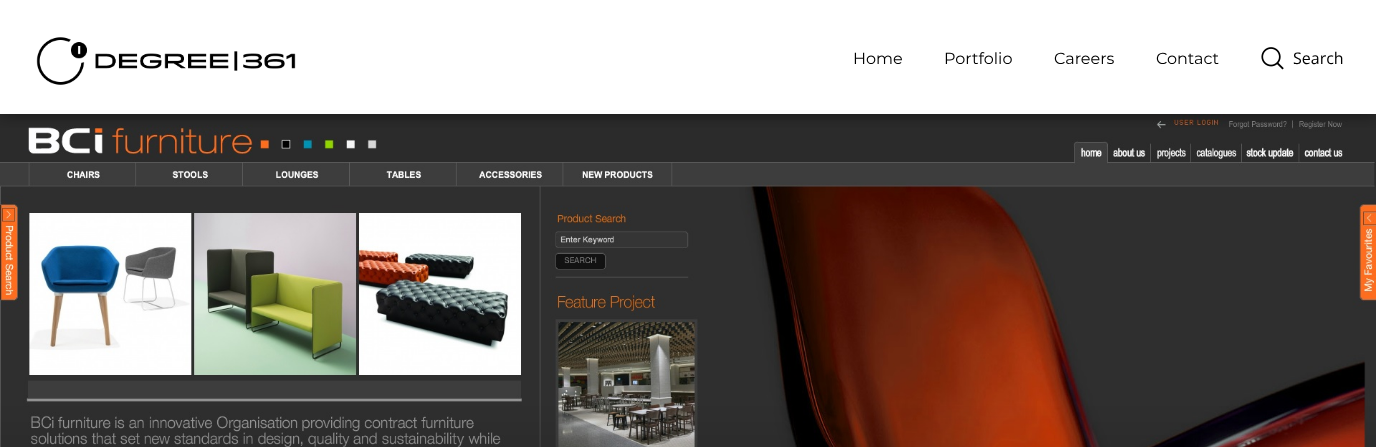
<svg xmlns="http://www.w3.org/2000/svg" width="1376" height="447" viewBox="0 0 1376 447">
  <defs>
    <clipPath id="clip1"><path d="M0 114h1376v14H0z"/></clipPath>
  </defs>
  <rect width="100%" height="100%" fill="#fff"/>
  <image x="0" y="114" width="1376" height="333" href="img/3.png"/>
  <g clip-path="url(#clip1)">
    <path d="M0 0h1376v114H0z" fill="#00000080" filter="blur(8px)"/>
  </g>
  <image x="36" y="37" width="260" height="48" href="img/1.png"/>
  <image x="1261" y="47" width="23" height="23" href="img/2.png"/>
  <g font-family="Montserrat" font-size="16" font-weight="100" fill="#000">
    <text x="853" y="64">Home</text>
    <text x="944" y="64">Portfolio</text>
    <text x="1054" y="64">Careers</text>
    <text x="1156" y="64">Contact</text>
  </g>
  <text x="1293" y="64" font-family="Open Sans" font-size="16" fill="#000">Search</text>
</svg>
